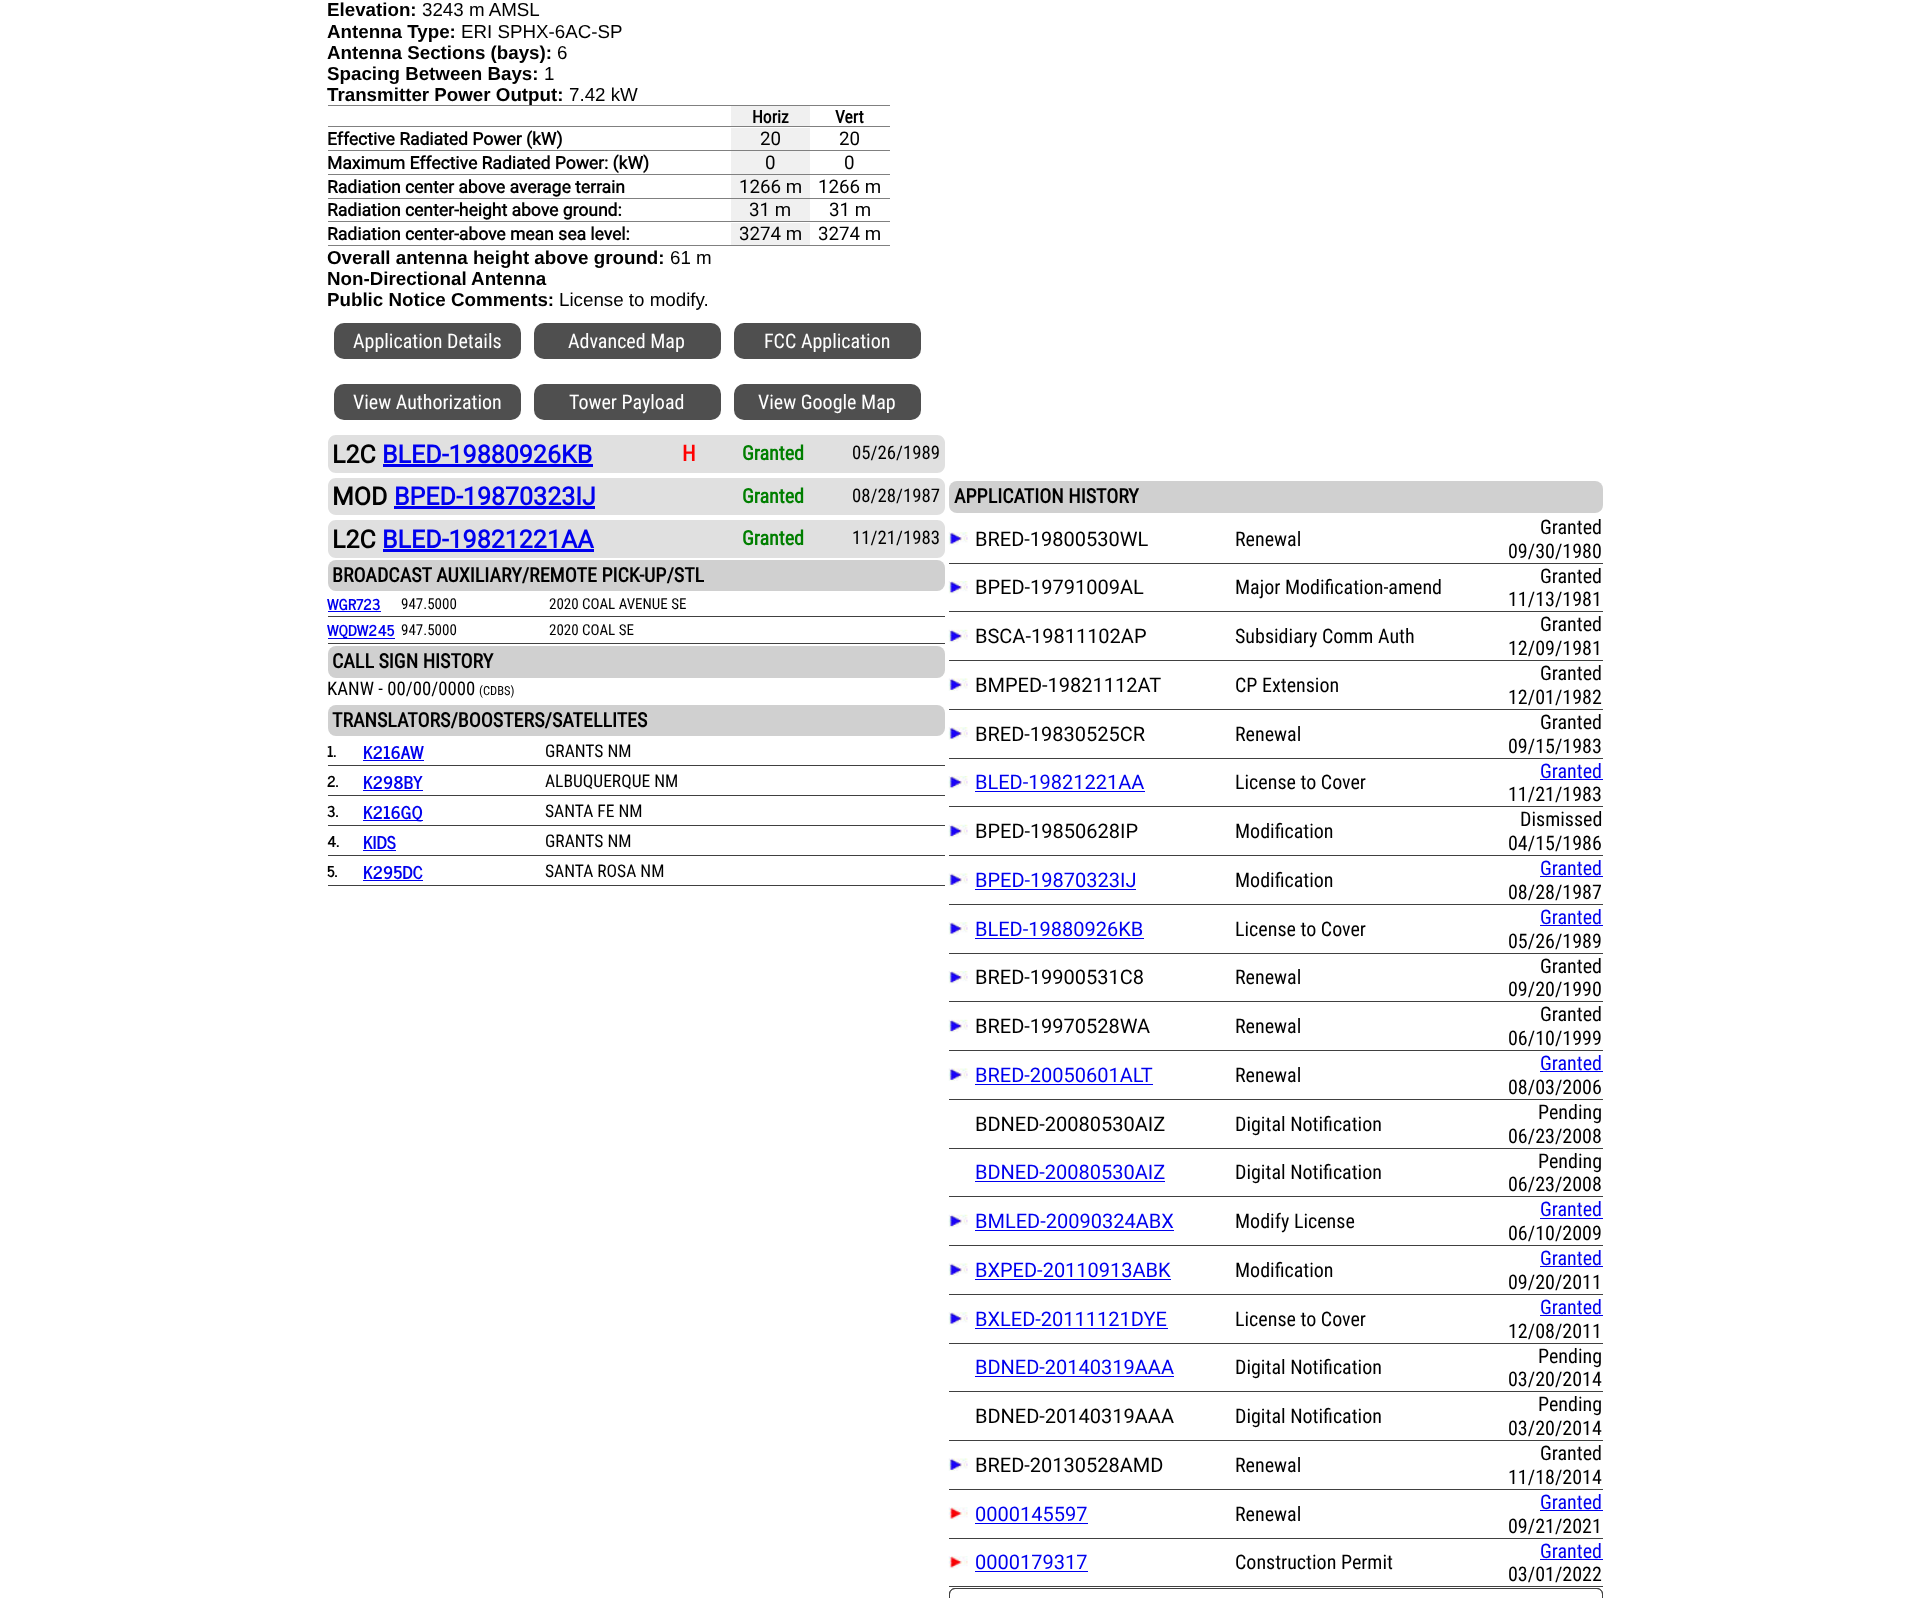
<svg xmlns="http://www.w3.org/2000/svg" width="1928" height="1598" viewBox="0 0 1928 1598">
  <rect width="100%" height="100%" fill="#fff"/>
  <path d="M328 105h562v1H328z" fill="#808080"/>
  <path d="M328 126h562v1H328z" fill="#808080"/>
  <path d="M731 106h79v20H731z" fill="#f0f0f0"/>
  <path d="M328 150h562v1H328z" fill="#808080"/>
  <path d="M731 128h79v22H731z" fill="#f0f0f0"/>
  <path d="M328 174h562v1H328z" fill="#808080"/>
  <path d="M731 151h79v23H731z" fill="#f0f0f0"/>
  <path d="M328 198h562v1H328z" fill="#808080"/>
  <path d="M731 175h79v23H731z" fill="#f0f0f0"/>
  <path d="M328 221h562v1H328z" fill="#808080"/>
  <path d="M731 199h79v22H731z" fill="#f0f0f0"/>
  <path d="M328 245h562v1H328z" fill="#808080"/>
  <path d="M731 223h79v22H731z" fill="#f0f0f0"/>
  <rect x="334" y="323" width="187" height="36" rx="10" fill="#4f4f4f"/>
  <rect x="534" y="323" width="187" height="36" rx="10" fill="#4f4f4f"/>
  <rect x="734" y="323" width="187" height="36" rx="10" fill="#4f4f4f"/>
  <rect x="334" y="384" width="187" height="36" rx="10" fill="#4f4f4f"/>
  <rect x="534" y="384" width="187" height="36" rx="10" fill="#4f4f4f"/>
  <rect x="734" y="384" width="187" height="36" rx="10" fill="#4f4f4f"/>
  <path d="M336 435H676V473H336C331.5 473 328 469.5 328 465V443C328 438.5 331.5 435 336 435Z" fill="#e0e0e0"/>
  <path d="M383 464h210v3H383z" fill="#00e"/>
  <path d="M676 435h170v38H676z" fill="#e0e0e0"/>
  <path d="M846 435H937C941.5 435 945 438.5 945 443V465C945 469.5 941.5 473 937 473H846Z" fill="#e0e0e0"/>
  <path d="M336 478H676V515H336C331.5 515 328 511.5 328 507V486C328 481.5 331.5 478 336 478Z" fill="#e0e0e0"/>
  <path d="M394 506h201v3H394z" fill="#00e"/>
  <path d="M676 478h170v37H676z" fill="#e0e0e0"/>
  <path d="M846 478H937C941.5 478 945 481.5 945 486V507C945 511.5 941.5 515 937 515H846Z" fill="#e0e0e0"/>
  <path d="M336 520H676V558H336C331.5 558 328 554.5 328 550V528C328 523.5 331.5 520 336 520Z" fill="#e0e0e0"/>
  <path d="M383 549h211v3H383z" fill="#00e"/>
  <path d="M676 520h170v38H676z" fill="#e0e0e0"/>
  <path d="M846 520H937C941.5 520 945 523.5 945 528V550C945 554.5 941.5 558 937 558H846Z" fill="#e0e0e0"/>
  <rect x="328" y="560" width="617" height="31" rx="8" fill="#d0d0d0"/>
  <path d="M328 616h617v1H328z" fill="#404040"/>
  <path d="M328 611h53v1H328z" fill="#00e"/>
  <path d="M328 643h617v1H328z" fill="#404040"/>
  <path d="M328 638h67v1H328z" fill="#00e"/>
  <rect x="328" y="646" width="617" height="32" rx="8" fill="#d0d0d0"/>
  <rect x="328" y="705" width="617" height="31" rx="8" fill="#d0d0d0"/>
  <path d="M328 765h617v1H328z" fill="#404040"/>
  <path d="M363 760h61v1H363z" fill="#00e"/>
  <path d="M328 795h617v1H328z" fill="#404040"/>
  <path d="M363 790h60v1H363z" fill="#00e"/>
  <path d="M328 825h617v1H328z" fill="#404040"/>
  <path d="M363 820h60v1H363z" fill="#00e"/>
  <path d="M328 855h617v1H328z" fill="#404040"/>
  <path d="M363 850h33v1H363z" fill="#00e"/>
  <path d="M328 885h617v1H328z" fill="#404040"/>
  <path d="M363 880h60v1H363z" fill="#00e"/>
  <rect x="949" y="481" width="654" height="32" rx="8" fill="#d0d0d0"/>
  <path d="M949 563h654v1H949z" fill="#404040"/>
  <image x="948" y="532" width="20" height="13" href="img/1.png"/>
  <path d="M949 611h654v1H949z" fill="#404040"/>
  <image x="948" y="581" width="20" height="13" href="img/2.png"/>
  <path d="M949 660h654v1H949z" fill="#404040"/>
  <image x="948" y="629" width="20" height="14" href="img/3.png"/>
  <path d="M949 709h654v1H949z" fill="#404040"/>
  <image x="948" y="678" width="20" height="13" href="img/4.png"/>
  <path d="M949 758h654v1H949z" fill="#404040"/>
  <image x="948" y="727" width="20" height="13" href="img/1.png"/>
  <path d="M975 791h170v1H975z" fill="#00e"/>
  <path d="M1540 779h63v1H1540z" fill="#00e"/>
  <path d="M949 806h654v1H949z" fill="#404040"/>
  <image x="948" y="776" width="20" height="13" href="img/2.png"/>
  <path d="M949 855h654v1H949z" fill="#404040"/>
  <image x="948" y="824" width="20" height="14" href="img/3.png"/>
  <path d="M975 889h161v1H975z" fill="#00e"/>
  <path d="M1540 876h63v1H1540z" fill="#00e"/>
  <path d="M949 904h654v1H949z" fill="#404040"/>
  <image x="948" y="873" width="20" height="13" href="img/5.png"/>
  <path d="M975 938h169v1H975z" fill="#00e"/>
  <path d="M1540 925h63v1H1540z" fill="#00e"/>
  <path d="M949 953h654v1H949z" fill="#404040"/>
  <image x="948" y="922" width="20" height="13" href="img/1.png"/>
  <path d="M949 1001h654v1H949z" fill="#404040"/>
  <image x="948" y="971" width="20" height="13" href="img/6.png"/>
  <path d="M949 1050h654v1H949z" fill="#404040"/>
  <image x="948" y="1019" width="20" height="14" href="img/3.png"/>
  <path d="M975 1084h178v1H975z" fill="#00e"/>
  <path d="M1540 1071h63v1H1540z" fill="#00e"/>
  <path d="M949 1099h654v1H949z" fill="#404040"/>
  <image x="948" y="1068" width="20" height="13" href="img/5.png"/>
  <path d="M949 1148h654v1H949z" fill="#404040"/>
  <path d="M975 1181h190v1H975z" fill="#00e"/>
  <path d="M949 1196h654v1H949z" fill="#404040"/>
  <path d="M975 1230h199v1H975z" fill="#00e"/>
  <path d="M1540 1218h63v1H1540z" fill="#00e"/>
  <path d="M949 1245h654v1H949z" fill="#404040"/>
  <image x="948" y="1214" width="20" height="14" href="img/3.png"/>
  <path d="M975 1279h196v1H975z" fill="#00e"/>
  <path d="M1540 1266h63v1H1540z" fill="#00e"/>
  <path d="M949 1294h654v1H949z" fill="#404040"/>
  <image x="948" y="1263" width="20" height="13" href="img/5.png"/>
  <path d="M975 1328h193v1H975z" fill="#00e"/>
  <path d="M1540 1315h63v1H1540z" fill="#00e"/>
  <path d="M949 1343h654v1H949z" fill="#404040"/>
  <image x="948" y="1312" width="20" height="13" href="img/1.png"/>
  <path d="M975 1376h199v1H975z" fill="#00e"/>
  <path d="M949 1391h654v1H949z" fill="#404040"/>
  <path d="M949 1440h654v1H949z" fill="#404040"/>
  <path d="M949 1489h654v1H949z" fill="#404040"/>
  <image x="948" y="1458" width="20" height="13" href="img/5.png"/>
  <path d="M975 1523h113v1H975z" fill="#00e"/>
  <path d="M1540 1510h63v1H1540z" fill="#00e"/>
  <path d="M949 1538h654v1H949z" fill="#404040"/>
  <image x="948" y="1507" width="20" height="13" href="img/7.png"/>
  <path d="M975 1571h113v1H975z" fill="#00e"/>
  <path d="M1540 1559h63v1H1540z" fill="#00e"/>
  <path d="M949 1586h654v1H949z" fill="#404040"/>
  <image x="948" y="1556" width="20" height="13" href="img/8.png"/>
  <rect x="949.5" y="1588.5" width="653" height="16" rx="5.5" fill="none" stroke="#404040"/>
  <rect x="949.5" y="1588.5" width="653" height="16" rx="5.5" fill="none" stroke="#404040"/>
  <text x="327" y="16" font-family="Liberation Sans" font-size="18.75" font-weight="bold" fill="#000">Elevation:</text>
  <text x="422" y="16" font-family="Liberation Sans" font-size="18.75" fill="#000">3243 m AMSL</text>
  <text x="327" y="38" font-family="Liberation Sans" font-size="18.75" font-weight="bold" fill="#000">Antenna Type:</text>
  <text x="461" y="38" font-family="Liberation Sans" font-size="18.75" fill="#000">ERI SPHX-6AC-SP</text>
  <text x="327" y="59" font-family="Liberation Sans" font-size="18.75" font-weight="bold" fill="#000">Antenna Sections (bays):</text>
  <text x="557" y="59" font-family="Liberation Sans" font-size="18.75" fill="#000">6</text>
  <text x="327" y="80" font-family="Liberation Sans" font-size="18.75" font-weight="bold" fill="#000">Spacing Between Bays:</text>
  <text x="544" y="80" font-family="Liberation Sans" font-size="18.75" fill="#000">1</text>
  <text x="327" y="101" font-family="Liberation Sans" font-size="18.75" font-weight="bold" fill="#000">Transmitter Power Output:</text>
  <text x="569" y="101" font-family="Liberation Sans" font-size="18.75" fill="#000">7.42 kW</text>
  <g font-family="Roboto Condensed" font-size="17.5" font-weight="bold" fill="#000">
    <text x="752" y="123">Horiz</text>
    <text x="835" y="123">Vert</text>
  </g>
  <text x="327" y="145" font-family="Roboto" font-size="17.5" font-weight="bold" fill="#000">Effective Radiated Power (kW)</text>
  <g font-family="Roboto" font-size="18.75" fill="#000">
    <text x="760" y="145">20</text>
    <text x="839" y="145">20</text>
  </g>
  <text x="327" y="169" font-family="Roboto" font-size="17.5" font-weight="bold" fill="#000">Maximum Effective Radiated Power: (kW)</text>
  <g font-family="Roboto" font-size="18.75" fill="#000">
    <text x="765" y="169">0</text>
    <text x="844" y="169">0</text>
  </g>
  <text x="327" y="193" font-family="Roboto" font-size="17.5" font-weight="bold" fill="#000">Radiation center above average terrain</text>
  <g font-family="Roboto" font-size="18.75" fill="#000">
    <text x="739" y="193">1266 m</text>
    <text x="818" y="193">1266 m</text>
  </g>
  <text x="327" y="216" font-family="Roboto" font-size="17.5" font-weight="bold" fill="#000">Radiation center-height above ground:</text>
  <g font-family="Roboto" font-size="18.75" fill="#000">
    <text x="749" y="216">31 m</text>
    <text x="829" y="216">31 m</text>
  </g>
  <text x="327" y="240" font-family="Roboto" font-size="17.5" font-weight="bold" fill="#000">Radiation center-above mean sea level:</text>
  <g font-family="Roboto" font-size="18.75" fill="#000">
    <text x="739" y="240">3274 m</text>
    <text x="818" y="240">3274 m</text>
  </g>
  <text x="327" y="264" font-family="Liberation Sans" font-size="18.75" font-weight="bold" fill="#000">Overall antenna height above ground:</text>
  <text x="670" y="264" font-family="Liberation Sans" font-size="18.75" fill="#000">61 m</text>
  <g font-family="Liberation Sans" font-size="18.75" font-weight="bold" fill="#000">
    <text x="327" y="285">Non-Directional Antenna</text>
    <text x="327" y="306">Public Notice Comments:</text>
  </g>
  <text x="559" y="306" font-family="Liberation Sans" font-size="18.75" fill="#000">License to modify.</text>
  <g font-family="Roboto Condensed" font-size="20" fill="#fff">
    <text x="353" y="348">Application Details</text>
    <text x="568" y="348">Advanced Map</text>
    <text x="764" y="348">FCC Application</text>
    <text x="353" y="409">View Authorization</text>
    <text x="569" y="409">Tower Payload</text>
    <text x="758" y="409">View Google Map</text>
  </g>
  <text x="332" y="463" font-family="Roboto" font-size="25" font-weight="bold" fill="#000">L2C</text>
  <text x="382" y="463" font-family="Roboto" font-size="25" font-weight="bold" fill="#00e">BLED-19880926KB</text>
  <text x="682" y="461" font-family="Roboto Condensed" font-size="22" font-weight="bold" fill="#f00">H</text>
  <text x="742" y="460" font-family="Roboto Condensed" font-size="20" font-weight="bold" fill="#007f00">Granted</text>
  <text x="852" y="459" font-family="Roboto Condensed" font-size="18.75" fill="#000">05/26/1989</text>
  <text x="332" y="505" font-family="Roboto" font-size="25" font-weight="bold" fill="#000">MOD</text>
  <text x="394" y="505" font-family="Roboto" font-size="25" font-weight="bold" fill="#00e">BPED-19870323IJ</text>
  <text x="742" y="503" font-family="Roboto Condensed" font-size="20" font-weight="bold" fill="#007f00">Granted</text>
  <text x="852" y="502" font-family="Roboto Condensed" font-size="18.75" fill="#000">08/28/1987</text>
  <text x="332" y="548" font-family="Roboto" font-size="25" font-weight="bold" fill="#000">L2C</text>
  <text x="382" y="548" font-family="Roboto" font-size="25" font-weight="bold" fill="#00e">BLED-19821221AA</text>
  <text x="742" y="545" font-family="Roboto Condensed" font-size="20" font-weight="bold" fill="#007f00">Granted</text>
  <text x="852" y="544" font-family="Roboto Condensed" font-size="18.75" fill="#000">11/21/1983</text>
  <text x="332" y="582" font-family="Roboto Condensed" font-size="20" font-weight="bold" fill="#000">BROADCAST AUXILIARY/REMOTE PICK-UP/STL</text>
  <text x="327" y="610" font-family="News Cycle" font-size="15" font-weight="bold" fill="#00e">WGR723</text>
  <g font-family="Roboto Condensed" font-size="15" fill="#000">
    <text x="401" y="609">947.5000</text>
    <text x="549" y="609">2020 COAL AVENUE SE</text>
  </g>
  <text x="327" y="636" font-family="News Cycle" font-size="15" font-weight="bold" fill="#00e">WQDW245</text>
  <g font-family="Roboto Condensed" font-size="15" fill="#000">
    <text x="401" y="635">947.5000</text>
    <text x="549" y="635">2020 COAL SE</text>
  </g>
  <text x="332" y="668" font-family="Roboto Condensed" font-size="20" font-weight="bold" fill="#000">CALL SIGN HISTORY</text>
  <text x="327" y="695" font-family="Roboto Condensed" font-size="18.75" fill="#000">KANW - 00/00/0000</text>
  <text x="479" y="695" font-family="Roboto Condensed" font-size="12.5" fill="#000">(CDBS)</text>
  <text x="332" y="727" font-family="Roboto Condensed" font-size="20" font-weight="bold" fill="#000">TRANSLATORS/BOOSTERS/SATELLITES</text>
  <text x="327" y="757" font-family="News Cycle" font-size="15" font-weight="bold" fill="#000">1.</text>
  <text x="363" y="759" font-family="News Cycle" font-size="17.5" font-weight="bold" fill="#00e">K216AW</text>
  <text x="545" y="757" font-family="Roboto Condensed" font-size="17.5" fill="#000">GRANTS NM</text>
  <text x="327" y="787" font-family="News Cycle" font-size="15" font-weight="bold" fill="#000">2.</text>
  <text x="363" y="789" font-family="News Cycle" font-size="17.5" font-weight="bold" fill="#00e">K298BY</text>
  <text x="545" y="787" font-family="Roboto Condensed" font-size="17.5" fill="#000">ALBUQUERQUE NM</text>
  <text x="327" y="817" font-family="News Cycle" font-size="15" font-weight="bold" fill="#000">3.</text>
  <text x="363" y="819" font-family="News Cycle" font-size="17.5" font-weight="bold" fill="#00e">K216GQ</text>
  <text x="545" y="817" font-family="Roboto Condensed" font-size="17.5" fill="#000">SANTA FE NM</text>
  <text x="327" y="847" font-family="News Cycle" font-size="15" font-weight="bold" fill="#000">4.</text>
  <text x="363" y="849" font-family="News Cycle" font-size="17.5" font-weight="bold" fill="#00e">KIDS</text>
  <text x="545" y="847" font-family="Roboto Condensed" font-size="17.5" fill="#000">GRANTS NM</text>
  <text x="327" y="877" font-family="News Cycle" font-size="15" font-weight="bold" fill="#000">5.</text>
  <text x="363" y="879" font-family="News Cycle" font-size="17.5" font-weight="bold" fill="#00e">K295DC</text>
  <text x="545" y="877" font-family="Roboto Condensed" font-size="17.5" fill="#000">SANTA ROSA NM</text>
  <text x="954" y="503" font-family="Roboto Condensed" font-size="20" font-weight="bold" fill="#000">APPLICATION HISTORY</text>
  <text x="975" y="546" font-family="Roboto" font-size="20" fill="#000">BRED-19800530WL</text>
  <g font-family="Roboto Condensed" font-size="20" fill="#000">
    <text x="1235" y="546">Renewal</text>
    <text x="1540" y="534">Granted</text>
    <text x="1508" y="558">09/30/1980</text>
  </g>
  <text x="975" y="594" font-family="Roboto" font-size="20" fill="#000">BPED-19791009AL</text>
  <g font-family="Roboto Condensed" font-size="20" fill="#000">
    <text x="1235" y="594">Major Modification-amend</text>
    <text x="1540" y="583">Granted</text>
    <text x="1508" y="606">11/13/1981</text>
  </g>
  <text x="975" y="643" font-family="Roboto" font-size="20" fill="#000">BSCA-19811102AP</text>
  <g font-family="Roboto Condensed" font-size="20" fill="#000">
    <text x="1235" y="643">Subsidiary Comm Auth</text>
    <text x="1540" y="631">Granted</text>
    <text x="1508" y="655">12/09/1981</text>
  </g>
  <text x="975" y="692" font-family="Roboto" font-size="20" fill="#000">BMPED-19821112AT</text>
  <g font-family="Roboto Condensed" font-size="20" fill="#000">
    <text x="1235" y="692">CP Extension</text>
    <text x="1540" y="680">Granted</text>
    <text x="1508" y="704">12/01/1982</text>
  </g>
  <text x="975" y="741" font-family="Roboto" font-size="20" fill="#000">BRED-19830525CR</text>
  <g font-family="Roboto Condensed" font-size="20" fill="#000">
    <text x="1235" y="741">Renewal</text>
    <text x="1540" y="729">Granted</text>
    <text x="1508" y="753">09/15/1983</text>
  </g>
  <text x="975" y="789" font-family="Roboto" font-size="20" fill="#00e">BLED-19821221AA</text>
  <text x="1235" y="789" font-family="Roboto Condensed" font-size="20" fill="#000">License to Cover</text>
  <text x="1540" y="778" font-family="Roboto Condensed" font-size="20" fill="#00e">Granted</text>
  <text x="1508" y="801" font-family="Roboto Condensed" font-size="20" fill="#000">11/21/1983</text>
  <text x="975" y="838" font-family="Roboto" font-size="20" fill="#000">BPED-19850628IP</text>
  <g font-family="Roboto Condensed" font-size="20" fill="#000">
    <text x="1235" y="838">Modification</text>
    <text x="1520" y="826">Dismissed</text>
    <text x="1508" y="850">04/15/1986</text>
  </g>
  <text x="975" y="887" font-family="Roboto" font-size="20" fill="#00e">BPED-19870323IJ</text>
  <text x="1235" y="887" font-family="Roboto Condensed" font-size="20" fill="#000">Modification</text>
  <text x="1540" y="875" font-family="Roboto Condensed" font-size="20" fill="#00e">Granted</text>
  <text x="1508" y="899" font-family="Roboto Condensed" font-size="20" fill="#000">08/28/1987</text>
  <text x="975" y="936" font-family="Roboto" font-size="20" fill="#00e">BLED-19880926KB</text>
  <text x="1235" y="936" font-family="Roboto Condensed" font-size="20" fill="#000">License to Cover</text>
  <text x="1540" y="924" font-family="Roboto Condensed" font-size="20" fill="#00e">Granted</text>
  <text x="1508" y="948" font-family="Roboto Condensed" font-size="20" fill="#000">05/26/1989</text>
  <text x="975" y="984" font-family="Roboto" font-size="20" fill="#000">BRED-19900531C8</text>
  <g font-family="Roboto Condensed" font-size="20" fill="#000">
    <text x="1235" y="984">Renewal</text>
    <text x="1540" y="973">Granted</text>
    <text x="1508" y="996">09/20/1990</text>
  </g>
  <text x="975" y="1033" font-family="Roboto" font-size="20" fill="#000">BRED-19970528WA</text>
  <g font-family="Roboto Condensed" font-size="20" fill="#000">
    <text x="1235" y="1033">Renewal</text>
    <text x="1540" y="1021">Granted</text>
    <text x="1508" y="1045">06/10/1999</text>
  </g>
  <text x="975" y="1082" font-family="Roboto" font-size="20" fill="#00e">BRED-20050601ALT</text>
  <text x="1235" y="1082" font-family="Roboto Condensed" font-size="20" fill="#000">Renewal</text>
  <text x="1540" y="1070" font-family="Roboto Condensed" font-size="20" fill="#00e">Granted</text>
  <text x="1508" y="1094" font-family="Roboto Condensed" font-size="20" fill="#000">08/03/2006</text>
  <text x="975" y="1131" font-family="Roboto" font-size="20" fill="#000">BDNED-20080530AIZ</text>
  <g font-family="Roboto Condensed" font-size="20" fill="#000">
    <text x="1235" y="1131">Digital Notification</text>
    <text x="1538" y="1119">Pending</text>
    <text x="1508" y="1143">06/23/2008</text>
  </g>
  <text x="975" y="1179" font-family="Roboto" font-size="20" fill="#00e">BDNED-20080530AIZ</text>
  <g font-family="Roboto Condensed" font-size="20" fill="#000">
    <text x="1235" y="1179">Digital Notification</text>
    <text x="1538" y="1168">Pending</text>
    <text x="1508" y="1191">06/23/2008</text>
  </g>
  <text x="975" y="1228" font-family="Roboto" font-size="20" fill="#00e">BMLED-20090324ABX</text>
  <text x="1235" y="1228" font-family="Roboto Condensed" font-size="20" fill="#000">Modify License</text>
  <text x="1540" y="1216" font-family="Roboto Condensed" font-size="20" fill="#00e">Granted</text>
  <text x="1508" y="1240" font-family="Roboto Condensed" font-size="20" fill="#000">06/10/2009</text>
  <text x="975" y="1277" font-family="Roboto" font-size="20" fill="#00e">BXPED-20110913ABK</text>
  <text x="1235" y="1277" font-family="Roboto Condensed" font-size="20" fill="#000">Modification</text>
  <text x="1540" y="1265" font-family="Roboto Condensed" font-size="20" fill="#00e">Granted</text>
  <text x="1508" y="1289" font-family="Roboto Condensed" font-size="20" fill="#000">09/20/2011</text>
  <text x="975" y="1326" font-family="Roboto" font-size="20" fill="#00e">BXLED-20111121DYE</text>
  <text x="1235" y="1326" font-family="Roboto Condensed" font-size="20" fill="#000">License to Cover</text>
  <text x="1540" y="1314" font-family="Roboto Condensed" font-size="20" fill="#00e">Granted</text>
  <text x="1508" y="1338" font-family="Roboto Condensed" font-size="20" fill="#000">12/08/2011</text>
  <text x="975" y="1374" font-family="Roboto" font-size="20" fill="#00e">BDNED-20140319AAA</text>
  <g font-family="Roboto Condensed" font-size="20" fill="#000">
    <text x="1235" y="1374">Digital Notification</text>
    <text x="1538" y="1363">Pending</text>
    <text x="1508" y="1386">03/20/2014</text>
  </g>
  <text x="975" y="1423" font-family="Roboto" font-size="20" fill="#000">BDNED-20140319AAA</text>
  <g font-family="Roboto Condensed" font-size="20" fill="#000">
    <text x="1235" y="1423">Digital Notification</text>
    <text x="1538" y="1411">Pending</text>
    <text x="1508" y="1435">03/20/2014</text>
  </g>
  <text x="975" y="1472" font-family="Roboto" font-size="20" fill="#000">BRED-20130528AMD</text>
  <g font-family="Roboto Condensed" font-size="20" fill="#000">
    <text x="1235" y="1472">Renewal</text>
    <text x="1540" y="1460">Granted</text>
    <text x="1508" y="1484">11/18/2014</text>
  </g>
  <text x="975" y="1521" font-family="Roboto" font-size="20" fill="#00e">0000145597</text>
  <text x="1235" y="1521" font-family="Roboto Condensed" font-size="20" fill="#000">Renewal</text>
  <text x="1540" y="1509" font-family="Roboto Condensed" font-size="20" fill="#00e">Granted</text>
  <text x="1508" y="1533" font-family="Roboto Condensed" font-size="20" fill="#000">09/21/2021</text>
  <text x="975" y="1569" font-family="Roboto" font-size="20" fill="#00e">0000179317</text>
  <text x="1235" y="1569" font-family="Roboto Condensed" font-size="20" fill="#000">Construction Permit</text>
  <text x="1540" y="1558" font-family="Roboto Condensed" font-size="20" fill="#00e">Granted</text>
  <text x="1508" y="1581" font-family="Roboto Condensed" font-size="20" fill="#000">03/01/2022</text>
</svg>
